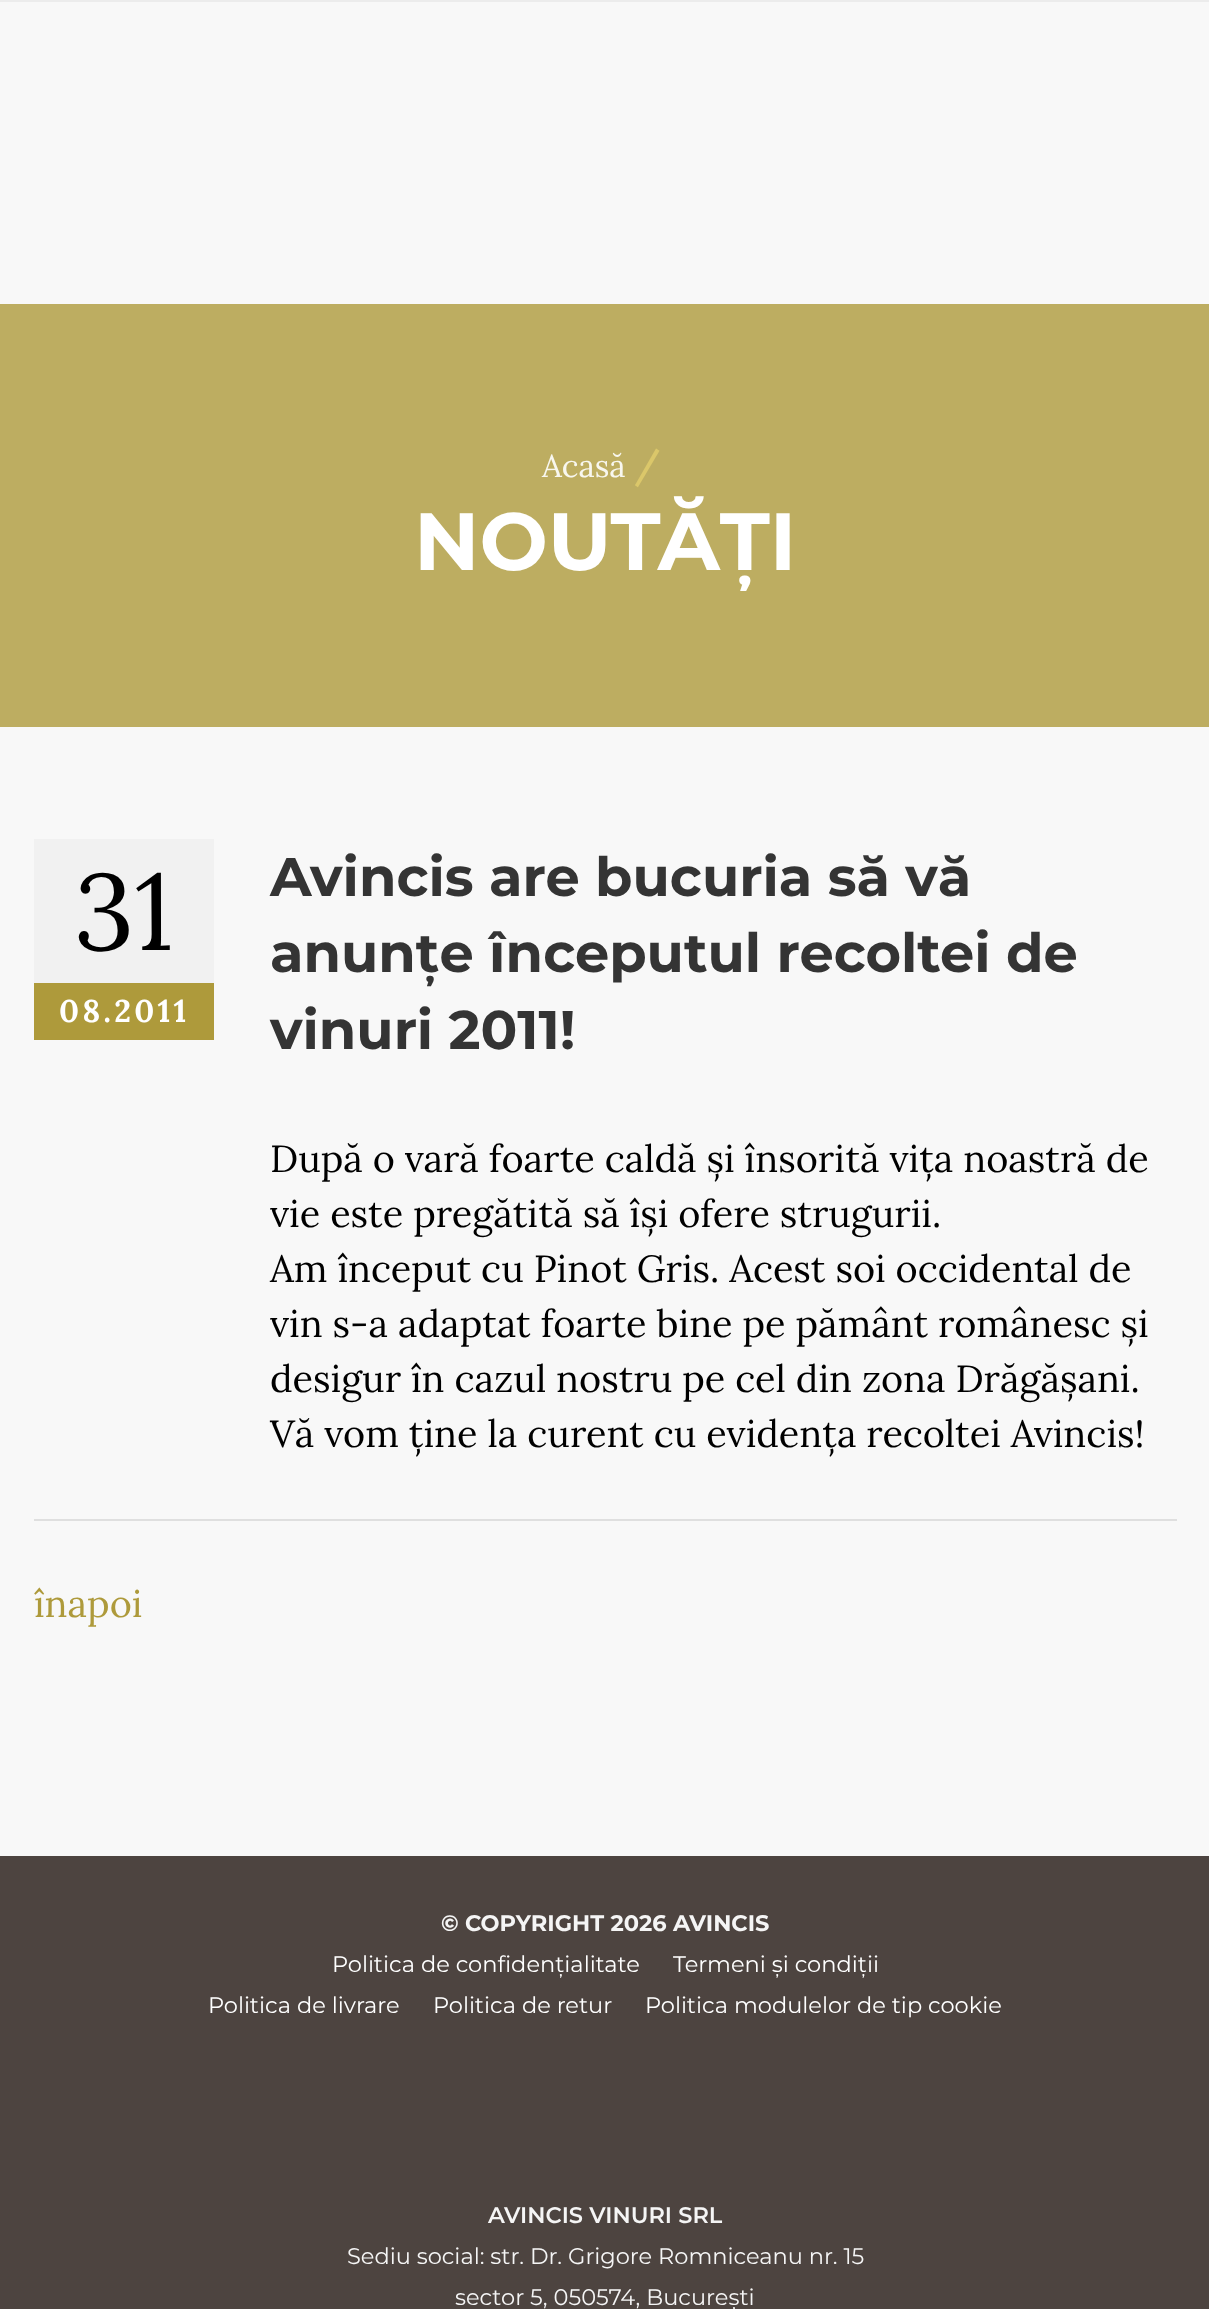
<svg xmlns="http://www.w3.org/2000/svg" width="1209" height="2309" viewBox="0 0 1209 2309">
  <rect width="100%" height="100%" fill="#f8f8f8"/>
  <path d="M0 0h1209v2H0z" fill="#ececec"/>
  <path d="M0 304h1209v423H0z" fill="#bdad61"/>
  <path d="M34 1519h1143v2H34z" fill="#dfdfdf"/>
  <path d="M34 839h180v144H34z" fill="#f1f1f1"/>
  <path d="M34 983h180v57H34z" fill="#ae9a3b"/>
  <path d="M0 1856h1209v453H0z" fill="#4d4440"/>
  <text x="542" y="477" font-family="Lora" font-size="31.5" fill="#f8f7ef">Acasă</text>
  <text x="634" y="477" font-family="Lora" font-size="37.8" font-weight="bold" fill="#dbc76a">/</text>
  <text x="414" y="570" font-family="Montserrat" font-size="81" font-weight="bold" fill="#fff">NOUTĂȚI</text>
  <text x="74" y="950" font-family="Lora" font-size="108" fill="#000">31</text>
  <text x="59" y="1022" font-family="Lora" font-size="31.5" font-weight="bold" letter-spacing="3.25" fill="#fff">08.2011</text>
  <g font-family="Montserrat" font-size="54.3" font-weight="bold" fill="#343434">
    <text x="270" y="896">Avincis are bucuria să vă</text>
    <text x="270" y="972">anunțe începutul recoltei de</text>
    <text x="270" y="1049">vinuri 2011!</text>
  </g>
  <g font-family="Lora" font-size="37.8" fill="#000">
    <text x="270" y="1172">După o vară foarte caldă și însorită vița noastră de</text>
    <text x="270" y="1227">vie este pregătită să își ofere strugurii.</text>
    <text x="270" y="1282">Am început cu Pinot Gris. Acest soi occidental de</text>
    <text x="270" y="1337">vin s-a adaptat foarte bine pe pământ românesc și</text>
    <text x="270" y="1392">desigur în cazul nostru pe cel din zona Drăgășani.</text>
    <text x="270" y="1447">Vă vom ține la curent cu evidența recoltei Avincis!</text>
  </g>
  <text x="34" y="1617" font-family="Lora" font-size="37.8" fill="#ae9a3b">înapoi</text>
  <text x="441" y="1931" font-family="Montserrat" font-size="22.5" font-weight="bold" fill="#f5f5f5">© COPYRIGHT 2026 AVINCIS</text>
  <g font-family="Montserrat" font-size="22.5" fill="#fff">
    <text x="332" y="1972">Politica de confidențialitate</text>
    <text x="673" y="1972">Termeni și condiții</text>
    <text x="208" y="2013">Politica de livrare</text>
    <text x="433" y="2013">Politica de retur</text>
    <text x="645" y="2013">Politica modulelor de tip cookie</text>
  </g>
  <text x="488" y="2223" font-family="Montserrat" font-size="22.5" font-weight="600" fill="#f5f5f5">AVINCIS VINURI SRL</text>
  <g font-family="Montserrat" font-size="22.5" fill="#f5f5f5">
    <text x="347" y="2264">Sediu social: str. Dr. Grigore Romniceanu nr. 15</text>
    <text x="455" y="2305">sector 5, 050574, București</text>
  </g>
</svg>
